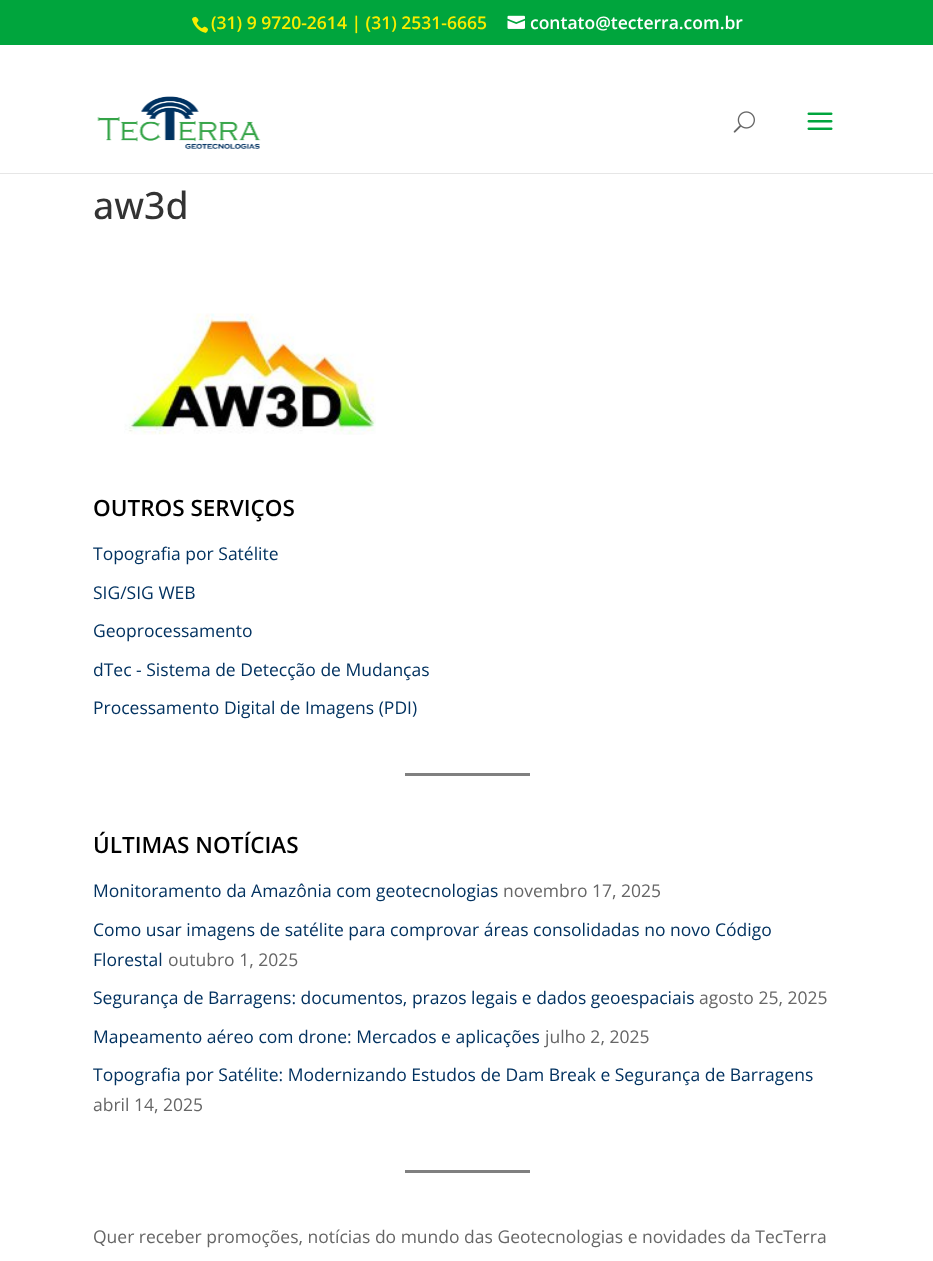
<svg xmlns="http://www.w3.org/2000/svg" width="933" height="1261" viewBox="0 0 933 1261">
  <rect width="100%" height="100%" fill="#fff"/>
  <path d="M0 0h933v45H0z" fill="#00a53d"/>
  <image x="192" y="16" width="16" height="17" href="img/1.png"/>
  <image x="507" y="15" width="18" height="14" href="img/2.png"/>
  <path d="M0 172V174H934V74V172Z" fill="#e6e6e6"/>
  <path d="M0 172h933v1H0z" fill="#fff"/>
  <image x="97" y="96" width="164" height="53" href="img/3.png"/>
  <image x="733" y="111" width="22" height="22" href="img/4.png"/>
  <image x="807" y="112" width="26" height="18" href="img/5.png"/>
  <image x="124" y="313" width="252" height="122" href="img/6.png"/>
  <path d="M405 773h125v3H405z" fill="#808080"/>
  <path d="M405 1170h125v3H405z" fill="#808080"/>
  <text x="211" y="29" font-family="Open Sans" font-size="17.5" font-weight="600" fill="#f9ed00">(31) 9 9720-2614 | (31) 2531-6665</text>
  <text x="530" y="29" font-family="Open Sans" font-size="17.5" font-weight="600" fill="#fff">contato@tecterra.com.br</text>
  <text x="93" y="219" font-family="Open Sans" font-size="37.5" font-weight="500" fill="#333">aw3d</text>
  <text x="93" y="516" font-family="Open Sans" font-size="22.5" font-weight="600" fill="#000">OUTROS SERVIÇOS</text>
  <g font-family="Open Sans" font-size="17.5" fill="#023260">
    <text x="93" y="560">Topografia por Satélite</text>
    <text x="93" y="599">SIG/SIG WEB</text>
    <text x="93" y="637">Geoprocessamento</text>
    <text x="93" y="676">dTec - Sistema de Detecção de Mudanças</text>
    <text x="93" y="714">Processamento Digital de Imagens (PDI)</text>
  </g>
  <text x="93" y="853" font-family="Open Sans" font-size="22.5" font-weight="600" fill="#000">ÚLTIMAS NOTÍCIAS</text>
  <text x="93" y="897" font-family="Open Sans" font-size="17.5" fill="#023260">Monitoramento da Amazônia com geotecnologias</text>
  <text x="503" y="897" font-family="Open Sans" font-size="17.5" fill="#666">novembro 17, 2025</text>
  <g font-family="Open Sans" font-size="17.5" fill="#023260">
    <text x="93" y="936">Como usar imagens de satélite para comprovar áreas consolidadas no novo Código</text>
    <text x="93" y="966">Florestal</text>
  </g>
  <text x="168" y="966" font-family="Open Sans" font-size="17.5" fill="#666">outubro 1, 2025</text>
  <text x="93" y="1004" font-family="Open Sans" font-size="17.5" fill="#023260">Segurança de Barragens: documentos, prazos legais e dados geoespaciais</text>
  <text x="699" y="1004" font-family="Open Sans" font-size="17.5" fill="#666">agosto 25, 2025</text>
  <text x="93" y="1043" font-family="Open Sans" font-size="17.5" fill="#023260">Mapeamento aéreo com drone: Mercados e aplicações</text>
  <text x="545" y="1043" font-family="Open Sans" font-size="17.5" fill="#666">julho 2, 2025</text>
  <text x="93" y="1081" font-family="Open Sans" font-size="17.5" fill="#023260">Topografia por Satélite: Modernizando Estudos de Dam Break e Segurança de Barragens</text>
  <g font-family="Open Sans" font-size="17.5" fill="#666">
    <text x="93" y="1111">abril 14, 2025</text>
    <text x="93" y="1243">Quer receber promoções, notícias do mundo das Geotecnologias e novidades da TecTerra</text>
  </g>
</svg>
